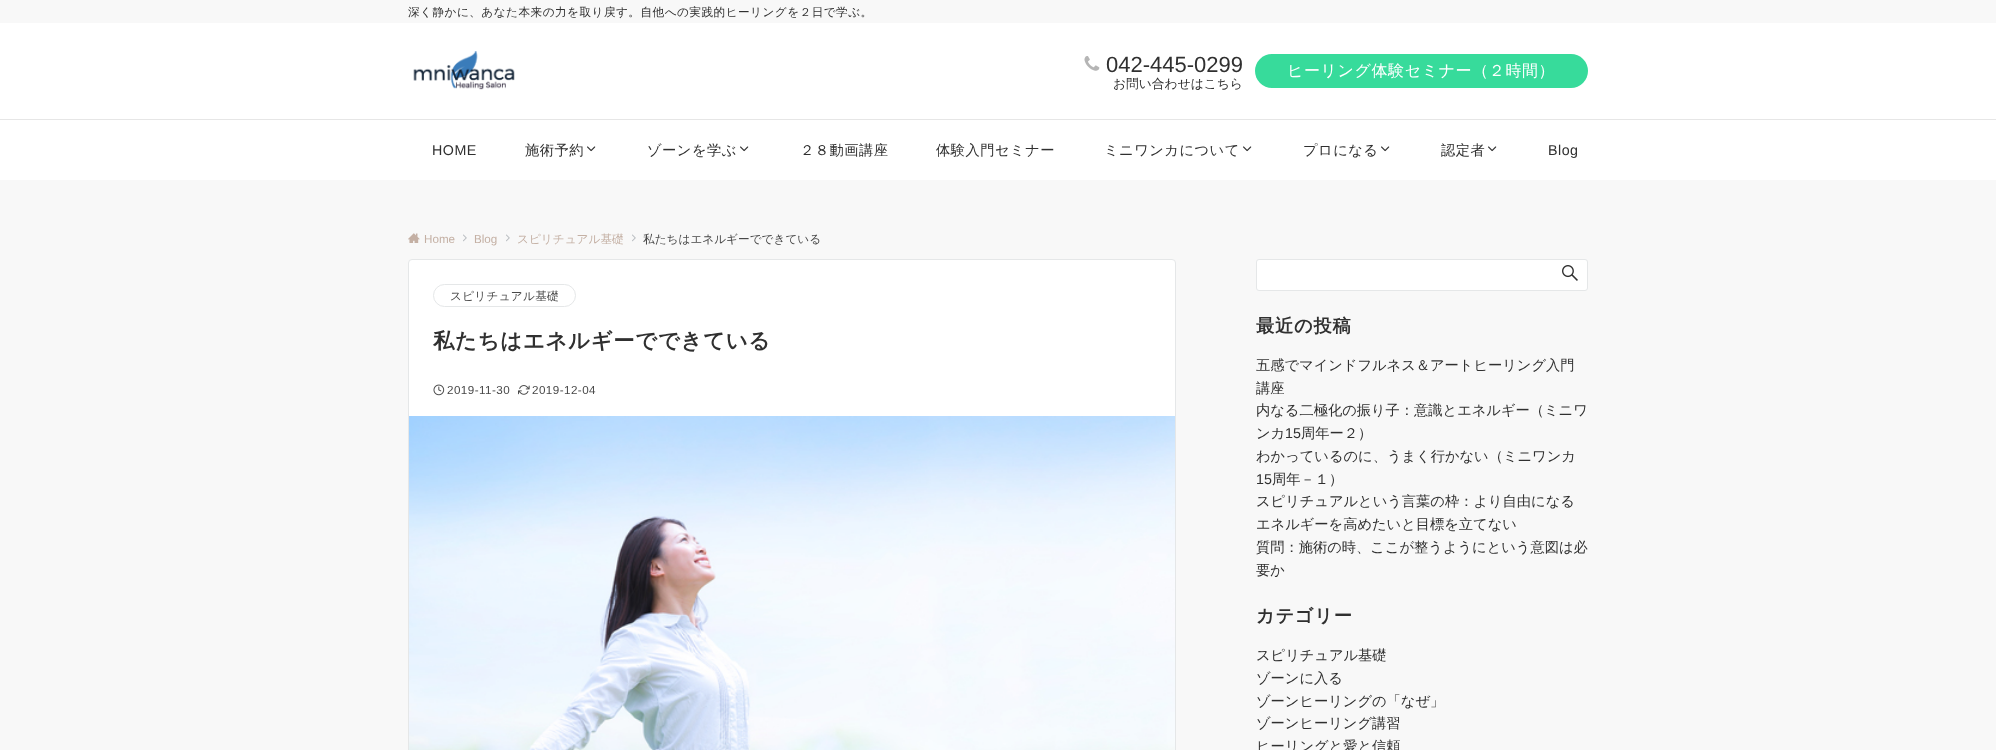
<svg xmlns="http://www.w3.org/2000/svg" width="1996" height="750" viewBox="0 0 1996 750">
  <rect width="100%" height="100%" fill="#f8f8f8"/>
  <path d="M0 23h1996v96H0z" fill="#fff"/>
  <path d="M0 119h1996v1H0z" fill="#e6e6e6"/>
  <image x="413" y="51" width="102" height="39" href="img/1.png"/>
  <image x="1084" y="56" width="16" height="15" href="img/2.png"/>
  <rect x="1255" y="54" width="333" height="34" rx="17" fill="#37db9b"/>
  <path d="M0 120h1996v60H0z" fill="#fff"/>
  <image x="587" y="146" width="9" height="6" href="img/3.png"/>
  <image x="740" y="146" width="9" height="6" href="img/3.png"/>
  <image x="1243" y="146" width="9" height="6" href="img/3.png"/>
  <image x="1381" y="146" width="9" height="6" href="img/3.png"/>
  <image x="1488" y="146" width="9" height="6" href="img/3.png"/>
  <image x="408" y="233" width="12" height="10" href="img/4.png"/>
  <image x="463" y="234" width="4" height="8" href="img/5.png"/>
  <image x="506" y="234" width="4" height="8" href="img/5.png"/>
  <image x="632" y="234" width="4" height="8" href="img/5.png"/>
  <rect x="408.5" y="259.5" width="767" height="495" rx="3.5" fill="#fff" stroke="#e5e7e8"/>
  <rect x="433.5" y="284.5" width="142" height="22" rx="11" fill="none" stroke="#e5e7e8"/>
  <image x="433" y="384" width="12" height="12" href="img/6.png"/>
  <image x="518" y="385" width="12" height="10" href="img/7.png"/>
  <image x="409" y="416" width="766" height="334" href="img/8.png"/>
  <rect x="1256.5" y="259.5" width="331" height="31" rx="2.5" fill="#fff" stroke="#e5e7e8"/>
  <image x="1562" y="265" width="16" height="16" href="img/9.png"/>
  <text x="408" y="16" font-family="WenQuanYi Zen Hei" font-size="11.65" font-weight="500" letter-spacing="0.45" fill="#303030">深く静かに、あなた本来の力を取り戻す。自他への実践的ヒーリングを２日で学ぶ。</text>
  <text x="1106" y="72" font-family="Liberation Sans" font-size="22" fill="#303030">042-445-0299</text>
  <text x="1113" y="88" font-family="WenQuanYi Zen Hei" font-size="12.75" font-weight="500" fill="#303030">お問い合わせはこちら</text>
  <text x="1287" y="76" font-family="WenQuanYi Zen Hei" font-size="16" font-weight="500" letter-spacing="0.6" fill="#fff">ヒーリング体験セミナー（２時間）</text>
  <text x="432" y="155" font-family="Liberation Sans" font-size="14.25" letter-spacing="0.5" fill="#303030">HOME</text>
  <g font-family="WenQuanYi Zen Hei" font-size="14.25" font-weight="500" letter-spacing="0.5" fill="#303030">
    <text x="525" y="155">施術予約</text>
    <text x="647" y="155">ゾーンを学ぶ</text>
    <text x="800" y="155">２８動画講座</text>
    <text x="936" y="155">体験入門セミナー</text>
    <text x="1104" y="155">ミニワンカについて</text>
    <text x="1303" y="155">プロになる</text>
    <text x="1441" y="155">認定者</text>
  </g>
  <text x="1548" y="155" font-family="Liberation Sans" font-size="14.25" letter-spacing="0.5" fill="#303030">Blog</text>
  <g font-family="Liberation Sans" font-size="11.65" fill="#c4b0a4">
    <text x="424" y="243">Home</text>
    <text x="474" y="243">Blog</text>
  </g>
  <text x="517" y="243" font-family="WenQuanYi Zen Hei" font-size="11.65" font-weight="500" fill="#c4b0a4">スピリチュアル基礎</text>
  <text x="643" y="243" font-family="WenQuanYi Zen Hei" font-size="11.65" font-weight="500" fill="#484848">私たちはエネルギーでできている</text>
  <text x="450" y="300" font-family="WenQuanYi Zen Hei" font-size="11.65" font-weight="500" letter-spacing="0.25" fill="#484848">スピリチュアル基礎</text>
  <text x="433" y="348" font-family="WenQuanYi Zen Hei" font-size="21.3" font-weight="bold" letter-spacing="0.8" fill="#303030">私たちはエネルギーでできている</text>
  <g font-family="Liberation Sans" font-size="11.65" letter-spacing="0.45" fill="#484848">
    <text x="447" y="394">2019-11-30</text>
    <text x="532" y="394">2019-12-04</text>
  </g>
  <text x="1256" y="332" font-family="WenQuanYi Zen Hei" font-size="18.25" font-weight="bold" letter-spacing="0.75" fill="#303030">最近の投稿</text>
  <g font-family="WenQuanYi Zen Hei" font-size="14.25" font-weight="500" fill="#303030">
    <text x="1256" y="370">五感でマインドフルネス＆アートヒーリング入門</text>
    <text x="1256" y="393">講座</text>
    <text x="1256" y="415">内なる二極化の振り子：意識とエネルギー（ミニワ</text>
    <text x="1256" y="438">ンカ</text>
  </g>
  <text x="1285" y="438" font-family="Liberation Sans" font-size="14.25" fill="#303030">15</text>
  <g font-family="WenQuanYi Zen Hei" font-size="14.25" font-weight="500" fill="#303030">
    <text x="1301" y="438">周年ー２）</text>
    <text x="1256" y="461">わかっているのに、うまく行かない（ミニワンカ</text>
  </g>
  <text x="1256" y="484" font-family="Liberation Sans" font-size="14.25" fill="#303030">15</text>
  <g font-family="WenQuanYi Zen Hei" font-size="14.25" font-weight="500" fill="#303030">
    <text x="1272" y="484">周年－１）</text>
    <text x="1256" y="506">スピリチュアルという言葉の枠：より自由になる</text>
    <text x="1256" y="529">エネルギーを高めたいと目標を立てない</text>
    <text x="1256" y="552">質問：施術の時、ここが整うようにという意図は必</text>
    <text x="1256" y="575">要か</text>
  </g>
  <text x="1256" y="622" font-family="WenQuanYi Zen Hei" font-size="18.25" font-weight="bold" letter-spacing="0.75" fill="#303030">カテゴリー</text>
  <g font-family="WenQuanYi Zen Hei" font-size="14.25" font-weight="500" fill="#303030">
    <text x="1256" y="660">スピリチュアル基礎</text>
    <text x="1256" y="683">ゾーンに入る</text>
    <text x="1256" y="706">ゾーンヒーリングの「なぜ」</text>
    <text x="1256" y="728">ゾーンヒーリング講習</text>
    <text x="1256" y="751">ヒーリングと愛と信頼</text>
  </g>
</svg>
